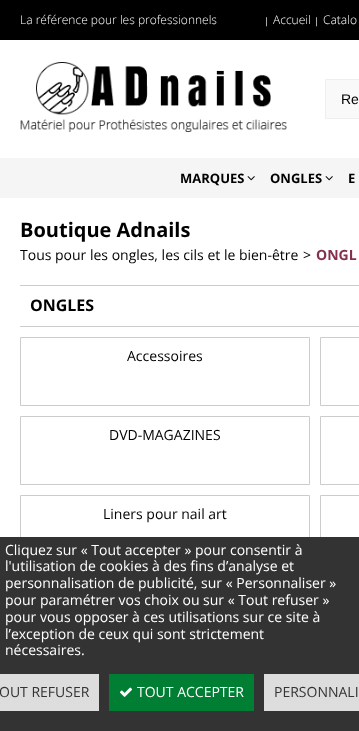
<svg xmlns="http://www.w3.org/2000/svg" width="359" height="731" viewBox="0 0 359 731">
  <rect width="100%" height="100%" fill="#fff"/>
  <path d="M0 0h359v40H0z" fill="#000"/>
  <image x="20" y="62" width="267" height="70" href="img/1.png"/>
  <path d="M325.5 79.5h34v39H325.5z" fill="#f9f9f9" stroke="#eee"/>
  <path d="M0 158h359v40H0z" fill="#f5f5f5"/>
  <image x="247" y="176" width="8" height="5" href="img/2.png"/>
  <image x="325" y="176" width="8" height="5" href="img/2.png"/>
  <path d="M20 285h339v1H20z" fill="#ccc"/>
  <path d="M20 326h339v1H20z" fill="#ccc"/>
  <path d="M20.5 337.5h289v68H20.5z" fill="none" stroke="#ccc"/>
  <path d="M320.5 337.5h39v68H320.5z" fill="none" stroke="#ccc"/>
  <path d="M20.5 416.5h289v68H20.5z" fill="none" stroke="#ccc"/>
  <path d="M320.5 416.5h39v68H320.5z" fill="none" stroke="#ccc"/>
  <path d="M20.5 495.5h289v48H20.5z" fill="none" stroke="#ccc"/>
  <path d="M320.5 495.5h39v48H320.5z" fill="none" stroke="#ccc"/>
  <path d="M0 537h359v194H0z" fill="#333"/>
  <path d="M0 674h99v37H0z" fill="#ddd"/>
  <path d="M109 674h145v37H109z" fill="#007e33"/>
  <image x="120" y="687" width="12" height="10" href="img/3.png"/>
  <path d="M264 674h95v37H264z" fill="#ddd"/>
  <text x="20" y="24" font-family="Open Sans" font-size="12" font-weight="300" fill="#fff">La référence pour les professionnels</text>
  <text x="264" y="24" font-family="Open Sans" font-size="9" fill="#fff">|</text>
  <text x="273" y="24" font-family="Open Sans" font-size="12" font-weight="300" fill="#fff">Accueil</text>
  <text x="314" y="24" font-family="Open Sans" font-size="9" fill="#fff">|</text>
  <text x="323" y="24" font-family="Open Sans" font-size="12" font-weight="300" fill="#fff">Catalo</text>
  <text x="341" y="104" font-family="Liberation Sans" font-size="14" fill="#000">Re</text>
  <g font-family="Open Sans" font-size="13" font-weight="bold" fill="#000">
    <text x="180" y="183">MARQUES</text>
    <text x="270" y="183">ONGLES</text>
    <text x="348" y="183">E</text>
  </g>
  <text x="20" y="237" font-family="Open Sans" font-size="20" font-weight="bold" fill="#000">Boutique Adnails</text>
  <g font-family="Open Sans" font-size="14" fill="#000">
    <text x="20" y="260">Tous pour les ongles, les cils et le bien-être</text>
    <text x="303" y="260">&gt;</text>
  </g>
  <text x="316" y="260" font-family="Open Sans" font-size="14" font-weight="bold" fill="#85304e">ONGL</text>
  <text x="30" y="311" font-family="Open Sans" font-size="16" font-weight="bold" fill="#000">ONGLES</text>
  <g font-family="Open Sans" font-size="14" fill="#000">
    <text x="127" y="361">Accessoires</text>
    <text x="109" y="440">DVD-MAGAZINES</text>
    <text x="103" y="519">Liners pour nail art</text>
  </g>
  <g font-family="Open Sans" font-size="14" fill="#fff">
    <text x="5" y="555">Cliquez sur « Tout accepter » pour consentir à</text>
    <text x="5" y="571">l'utilisation de cookies à des fins d’analyse et</text>
    <text x="5" y="588">personnalisation de publicité, sur « Personnaliser »</text>
    <text x="5" y="605">pour paramétrer vos choix ou sur « Tout refuser »</text>
    <text x="5" y="622">pour vous opposer à ces utilisations sur ce site à</text>
    <text x="5" y="639">l’exception de ceux qui sont strictement</text>
    <text x="5" y="655">nécessaires.</text>
  </g>
  <text x="-1" y="697" font-family="Open Sans" font-size="14" fill="#333">OUT REFUSER</text>
  <text x="137" y="697" font-family="Open Sans" font-size="14" fill="#fff">TOUT ACCEPTER</text>
  <text x="274" y="697" font-family="Open Sans" font-size="14" fill="#333">PERSONNALI</text>
</svg>
